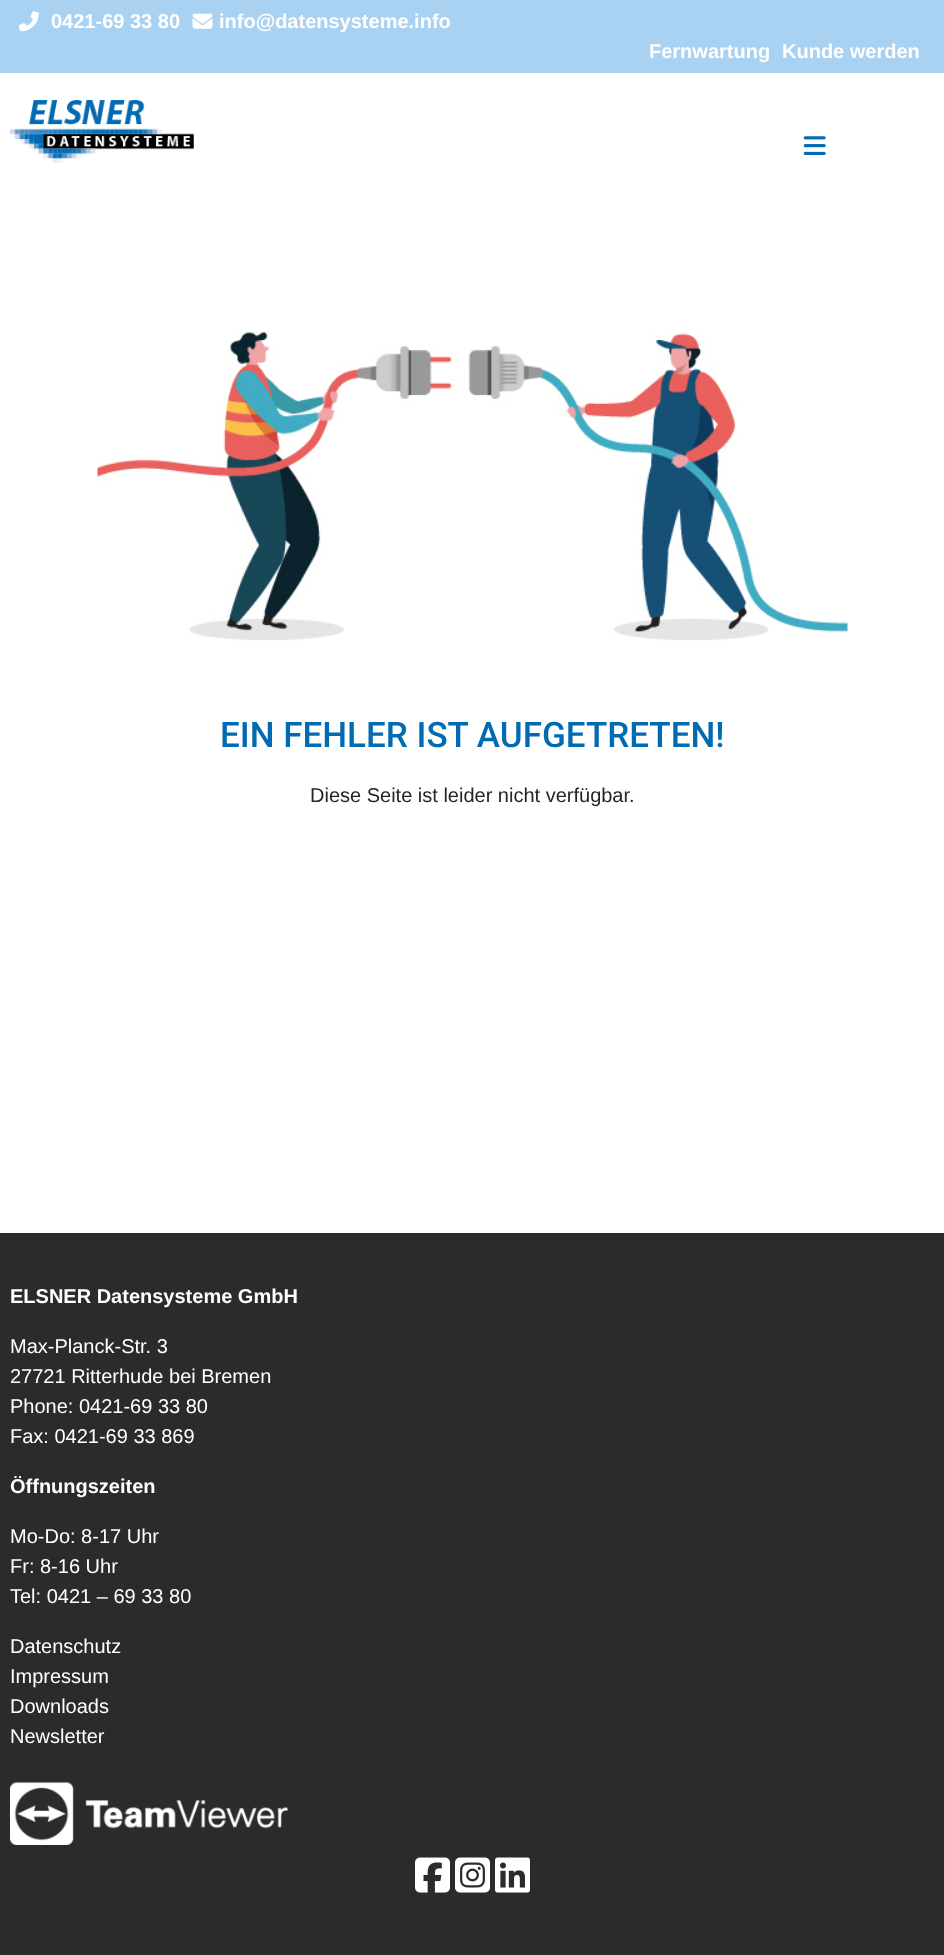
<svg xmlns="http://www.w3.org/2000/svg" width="944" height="1955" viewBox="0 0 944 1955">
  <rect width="100%" height="100%" fill="#fff"/>
  <path d="M0 0h944v73H0z" fill="#a9d2f2"/>
  <image x="18" y="11" width="21" height="21" href="img/1.png"/>
  <image x="192" y="13" width="21" height="16" href="img/2.png"/>
  <image x="10" y="100" width="184" height="63" href="img/3.png"/>
  <image x="803" y="136" width="23" height="19" href="img/4.png"/>
  <image x="97" y="332" width="751" height="309" href="img/5.png"/>
  <path d="M0 1233h944v722H0z" fill="#2b2b2b"/>
  <image x="10" y="1782" width="278" height="63" href="img/6.png"/>
  <image x="415" y="1857" width="35" height="36" href="img/7.png"/>
  <image x="455" y="1857" width="35" height="36" href="img/8.png"/>
  <image x="495" y="1857" width="35" height="36" href="img/9.png"/>
  <g font-family="Liberation Sans" font-size="20" font-weight="bold" fill="#fff">
    <text x="51" y="28">0421-69 33 80</text>
    <text x="219" y="28">info@datensysteme.info</text>
    <text x="649" y="58">Fernwartung</text>
    <text x="782" y="58">Kunde werden</text>
  </g>
  <text x="220" y="747" font-family="Roboto" font-size="35" font-weight="500" fill="#006ab3">EIN FEHLER IST AUFGETRETEN!</text>
  <text x="310" y="802" font-family="Liberation Sans" font-size="20" fill="#22262a">Diese Seite ist leider nicht verfügbar.</text>
  <text x="10" y="1303" font-family="Liberation Sans" font-size="20" font-weight="bold" fill="#fff">ELSNER Datensysteme GmbH</text>
  <g font-family="Liberation Sans" font-size="20" fill="#fff">
    <text x="10" y="1353">Max-Planck-Str. 3</text>
    <text x="10" y="1383">27721 Ritterhude bei Bremen</text>
    <text x="10" y="1413">Phone: 0421-69 33 80</text>
    <text x="10" y="1443">Fax: 0421-69 33 869</text>
  </g>
  <text x="10" y="1493" font-family="Liberation Sans" font-size="20" font-weight="bold" fill="#fff">Öffnungszeiten</text>
  <g font-family="Liberation Sans" font-size="20" fill="#fff">
    <text x="10" y="1543">Mo-Do: 8-17 Uhr</text>
    <text x="10" y="1573">Fr: 8-16 Uhr</text>
    <text x="10" y="1603">Tel: 0421 – 69 33 80</text>
    <text x="10" y="1653">Datenschutz</text>
    <text x="10" y="1683">Impressum</text>
    <text x="10" y="1713">Downloads</text>
    <text x="10" y="1743">Newsletter</text>
  </g>
</svg>
